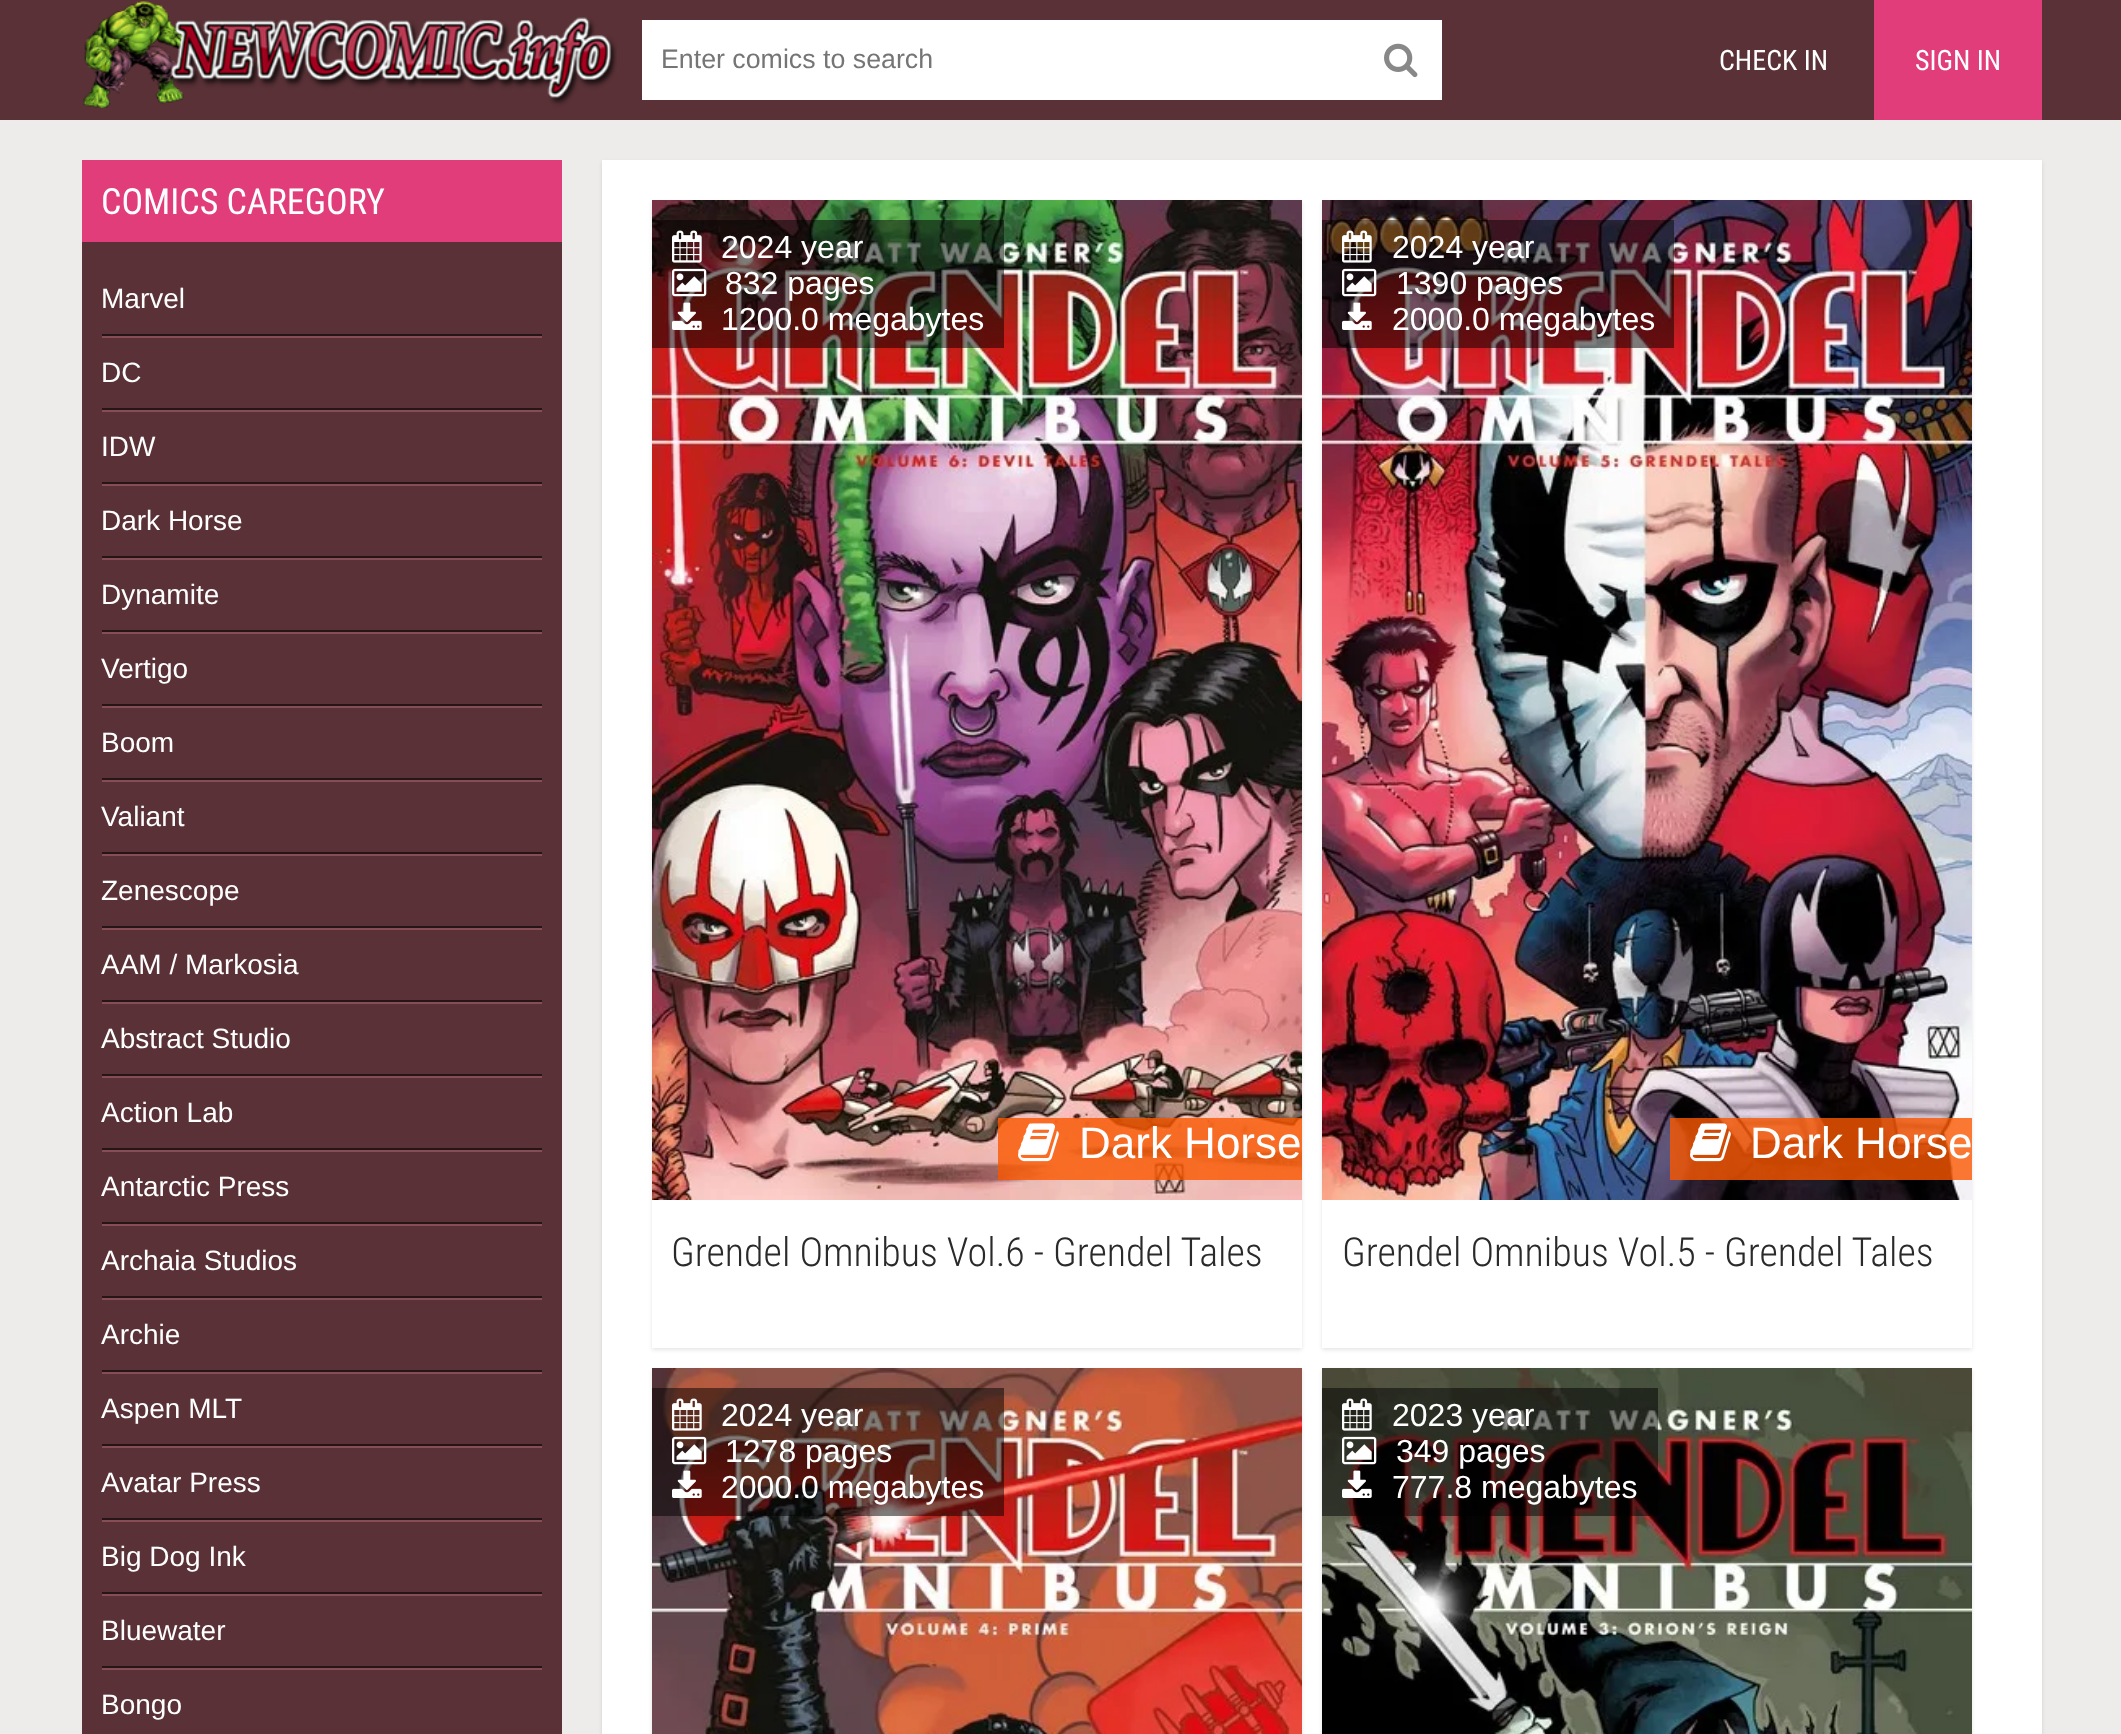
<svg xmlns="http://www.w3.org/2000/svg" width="2121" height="1734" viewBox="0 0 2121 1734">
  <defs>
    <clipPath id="clip1"><path d="M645 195H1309V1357H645ZM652 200H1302V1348H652Z" clip-rule="evenodd"/></clipPath>
    <clipPath id="clip2"><path d="M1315 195H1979V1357H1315ZM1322 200H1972V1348H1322Z" clip-rule="evenodd"/></clipPath>
  </defs>
  <rect width="100%" height="100%" fill="#eeebeb"/>
  <path d="M0 0h2121v120H0z" fill="#593136"/>
  <image x="83" y="1" width="534" height="107" href="img/1.png"/>
  <path d="M642 20h800v80H642z" fill="#fff"/>
  <image x="1384" y="43" width="34" height="35" href="img/2.png"/>
  <path d="M1874 0h168v120H1874z" fill="#e13d7a"/>
  <path d="M82 242h480v1492H82z" fill="#593136"/>
  <path d="M82 160h480v82H82z" fill="#e13d7a"/>
  <path d="M102 336h440v2H102z" fill="#874d55"/>
  <path d="M102 334h440v2H102z" fill="#251517"/>
  <path d="M102 410h440v2H102z" fill="#874d55"/>
  <path d="M102 408h440v2H102z" fill="#251517"/>
  <path d="M102 484h440v2H102z" fill="#874d55"/>
  <path d="M102 482h440v2H102z" fill="#251517"/>
  <path d="M102 558h440v2H102z" fill="#874d55"/>
  <path d="M102 556h440v2H102z" fill="#251517"/>
  <path d="M102 632h440v2H102z" fill="#874d55"/>
  <path d="M102 630h440v2H102z" fill="#251517"/>
  <path d="M102 706h440v2H102z" fill="#874d55"/>
  <path d="M102 704h440v2H102z" fill="#251517"/>
  <path d="M102 780h440v2H102z" fill="#874d55"/>
  <path d="M102 778h440v2H102z" fill="#251517"/>
  <path d="M102 854h440v2H102z" fill="#874d55"/>
  <path d="M102 852h440v2H102z" fill="#251517"/>
  <path d="M102 928h440v2H102z" fill="#874d55"/>
  <path d="M102 926h440v2H102z" fill="#251517"/>
  <path d="M102 1002h440v2H102z" fill="#874d55"/>
  <path d="M102 1000h440v2H102z" fill="#251517"/>
  <path d="M102 1076h440v2H102z" fill="#874d55"/>
  <path d="M102 1074h440v2H102z" fill="#251517"/>
  <path d="M102 1150h440v2H102z" fill="#874d55"/>
  <path d="M102 1148h440v2H102z" fill="#251517"/>
  <path d="M102 1224h440v2H102z" fill="#874d55"/>
  <path d="M102 1222h440v2H102z" fill="#251517"/>
  <path d="M102 1298h440v2H102z" fill="#874d55"/>
  <path d="M102 1296h440v2H102z" fill="#251517"/>
  <path d="M102 1372h440v2H102z" fill="#874d55"/>
  <path d="M102 1370h440v2H102z" fill="#251517"/>
  <path d="M102 1446h440v2H102z" fill="#874d55"/>
  <path d="M102 1444h440v2H102z" fill="#251517"/>
  <path d="M102 1520h440v2H102z" fill="#874d55"/>
  <path d="M102 1518h440v2H102z" fill="#251517"/>
  <path d="M102 1594h440v2H102z" fill="#874d55"/>
  <path d="M102 1592h440v2H102z" fill="#251517"/>
  <path d="M102 1668h440v2H102z" fill="#874d55"/>
  <path d="M102 1666h440v2H102z" fill="#251517"/>
  <path d="M602 162h1440v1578H602z" fill="#0000001a" filter="blur(2px)"/>
  <path d="M602 160h1440v1574H602z" fill="#fff"/>
  <g clip-path="url(#clip1)">
    <path d="M652 202h650v1148H652z" fill="#0000001a" filter="blur(2px)"/>
  </g>
  <image x="652" y="200" width="650" height="1000" href="img/3.png"/>
  <path d="M652 220h352v128H652z" fill="#00000080"/>
  <image x="672" y="230" width="30" height="33" href="img/4.png"/>
  <image x="672" y="268" width="35" height="29" href="img/5.png"/>
  <image x="672" y="302" width="30" height="28" href="img/6.png"/>
  <path d="M998 1118h304v62H998z" fill="#fa5800cc"/>
  <image x="1018" y="1123" width="41" height="39" href="img/7.png"/>
  <g clip-path="url(#clip2)">
    <path d="M1322 202h650v1148H1322z" fill="#0000001a" filter="blur(2px)"/>
  </g>
  <image x="1322" y="200" width="650" height="1000" href="img/8.png"/>
  <path d="M1322 220h352v128H1322z" fill="#00000080"/>
  <image x="1342" y="230" width="30" height="33" href="img/9.png"/>
  <image x="1342" y="268" width="35" height="29" href="img/10.png"/>
  <image x="1342" y="302" width="30" height="28" href="img/11.png"/>
  <path d="M1670 1118h302v62H1670z" fill="#fa5800cc"/>
  <image x="1690" y="1123" width="41" height="39" href="img/12.png"/>
  <path d="M652 1370h650v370H652z" fill="#0000001a" filter="blur(2px)"/>
  <image x="652" y="1368" width="650" height="366" href="img/13.png"/>
  <path d="M652 1388h352v128H652z" fill="#00000080"/>
  <image x="672" y="1398" width="30" height="33" href="img/14.png"/>
  <image x="672" y="1436" width="35" height="29" href="img/15.png"/>
  <image x="672" y="1470" width="30" height="28" href="img/16.png"/>
  <path d="M1322 1370h650v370H1322z" fill="#0000001a" filter="blur(2px)"/>
  <image x="1322" y="1368" width="650" height="366" href="img/17.png"/>
  <path d="M1322 1388h336v128H1322z" fill="#00000080"/>
  <image x="1342" y="1398" width="30" height="33" href="img/18.png"/>
  <image x="1342" y="1436" width="35" height="29" href="img/19.png"/>
  <image x="1342" y="1470" width="30" height="28" href="img/20.png"/>
  <text x="661" y="68" font-family="Liberation Sans" font-size="26.75" fill="#757575">Enter comics to search</text>
  <g font-family="Roboto Condensed" font-size="28" fill="#fff">
    <text x="1719" y="70">CHECK IN</text>
    <text x="1915" y="70">SIGN IN</text>
  </g>
  <text x="101" y="214" font-family="Roboto Condensed" font-size="36" fill="#fff">COMICS CAREGORY</text>
  <g font-family="Liberation Sans" font-size="28" fill="#fff">
    <text x="101" y="308">Marvel</text>
    <text x="101" y="382">DC</text>
    <text x="101" y="456">IDW</text>
    <text x="101" y="530">Dark Horse</text>
    <text x="101" y="604">Dynamite</text>
    <text x="101" y="678">Vertigo</text>
    <text x="101" y="752">Boom</text>
    <text x="101" y="826">Valiant</text>
    <text x="101" y="900">Zenescope</text>
    <text x="101" y="974">AAM / Markosia</text>
    <text x="101" y="1048">Abstract Studio</text>
    <text x="101" y="1122">Action Lab</text>
    <text x="101" y="1196">Antarctic Press</text>
    <text x="101" y="1270">Archaia Studios</text>
    <text x="101" y="1344">Archie</text>
    <text x="101" y="1418">Aspen MLT</text>
    <text x="101" y="1492">Avatar Press</text>
    <text x="101" y="1566">Big Dog Ink</text>
    <text x="101" y="1640">Bluewater</text>
    <text x="101" y="1714">Bongo</text>
  </g>
  <g font-family="Liberation Sans" font-size="32" fill="#fff">
    <text x="721" y="258">2024 year</text>
    <text x="725" y="294">832 pages</text>
    <text x="721" y="330">1200.0 megabytes</text>
  </g>
  <text x="1079" y="1158" font-family="Liberation Sans" font-size="44" fill="#fff">Dark Horse</text>
  <text x="671" y="1266" font-family="Roboto Condensed" font-size="40" font-weight="300" fill="#2a2a2a">Grendel Omnibus Vol.6 - Grendel Tales</text>
  <g font-family="Liberation Sans" font-size="32" fill="#fff">
    <text x="1392" y="258">2024 year</text>
    <text x="1396" y="294">1390 pages</text>
    <text x="1392" y="330">2000.0 megabytes</text>
  </g>
  <text x="1750" y="1158" font-family="Liberation Sans" font-size="44" fill="#fff">Dark Horse</text>
  <text x="1342" y="1266" font-family="Roboto Condensed" font-size="40" font-weight="300" fill="#2a2a2a">Grendel Omnibus Vol.5 - Grendel Tales</text>
  <g font-family="Liberation Sans" font-size="32" fill="#fff">
    <text x="721" y="1426">2024 year</text>
    <text x="725" y="1462">1278 pages</text>
    <text x="721" y="1498">2000.0 megabytes</text>
    <text x="1392" y="1426">2023 year</text>
    <text x="1396" y="1462">349 pages</text>
    <text x="1392" y="1498">777.8 megabytes</text>
  </g>
</svg>
